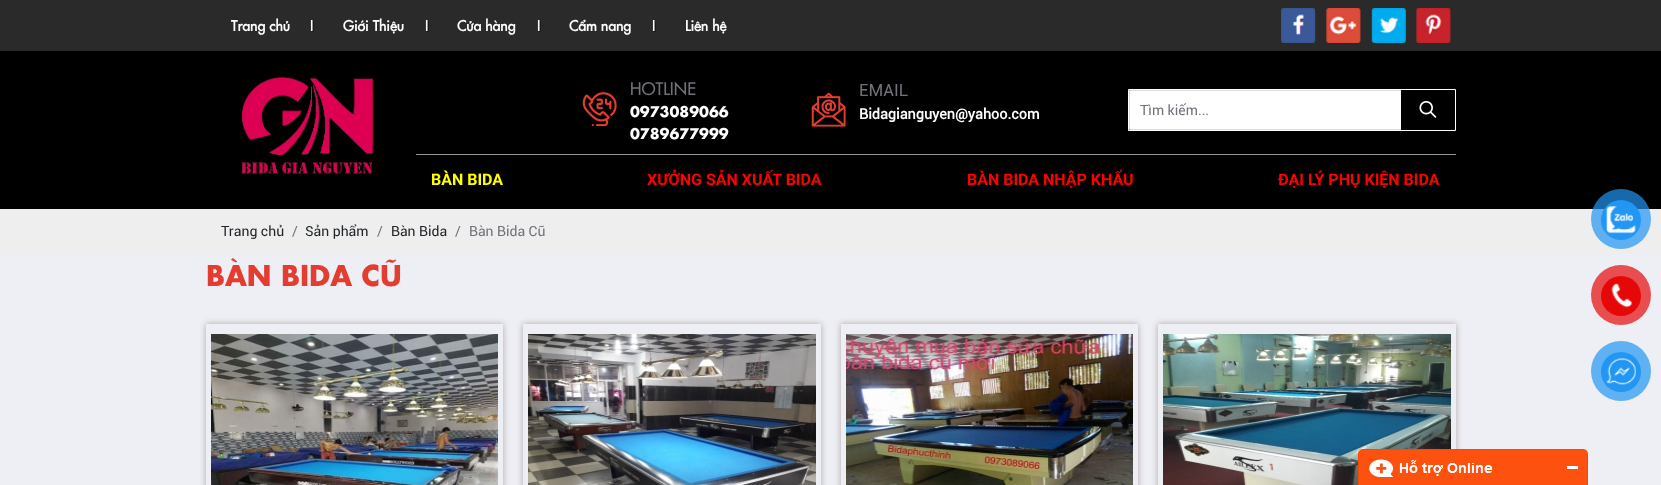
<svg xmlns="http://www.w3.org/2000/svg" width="1661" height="485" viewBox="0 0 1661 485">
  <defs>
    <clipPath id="clip1"><path d="M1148 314H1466V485H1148ZM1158 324H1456V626H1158Z" clip-rule="evenodd"/></clipPath>
    <clipPath id="clip2"><path d="M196 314H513V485H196ZM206 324H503V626H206Z" clip-rule="evenodd"/></clipPath>
    <clipPath id="clip3"><path d="M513 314H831V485H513ZM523 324H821V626H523Z" clip-rule="evenodd"/></clipPath>
    <clipPath id="clip4"><path d="M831 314H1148V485H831ZM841 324H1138V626H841Z" clip-rule="evenodd"/></clipPath>
  </defs>
  <rect width="100%" height="100%" fill="#edeff4"/>
  <path d="M0 0h1661v51H0z" fill="#2a2a2a"/>
  <image x="310" y="20" width="4" height="12" href="img/1.png"/>
  <image x="425" y="20" width="4" height="12" href="img/1.png"/>
  <image x="537" y="20" width="4" height="12" href="img/1.png"/>
  <image x="652" y="20" width="4" height="12" href="img/1.png"/>
  <image x="1281" y="8" width="35" height="35" href="img/2.png"/>
  <image x="1326" y="8" width="35" height="35" href="img/3.png"/>
  <image x="1371" y="8" width="35" height="35" href="img/4.png"/>
  <image x="1416" y="8" width="35" height="35" href="img/5.png"/>
  <path d="M0 51h1661v158H0z" fill="#000"/>
  <image x="241" y="76" width="133" height="98" href="img/6.png"/>
  <image x="582" y="92" width="35" height="35" href="img/7.png"/>
  <image x="811" y="92" width="35" height="35" href="img/8.png"/>
  <path d="M1128.5 89.5h327v41H1128.5z" fill="none" stroke="#fff"/>
  <path d="M1130 91h271v38H1130z" fill="#fff"/>
  <path d="M1129.5 90.5h325v39H1129.5z" fill="none" stroke="#ddd"/>
  <path d="M1401 90h54v40H1401z" fill="#000"/>
  <image x="1419" y="101" width="18" height="17" href="img/9.png"/>
  <path d="M416 154h1040v1H416z" fill="#9b9696"/>
  <path d="M0 209h1661v45H0z" fill="#eee"/>
  <circle cx="1621" cy="219" r="30" fill="#2196f3b3"/>
  <circle cx="1621" cy="220" r="20" fill="#2196f3"/>
  <image x="1606" y="206" width="30" height="28" href="img/10.png"/>
  <circle cx="1621" cy="295" r="30" fill="#e84d4f"/>
  <circle cx="1621" cy="296" r="20" fill="#e60808"/>
  <image x="1611" y="283" width="22" height="25" href="img/11.png"/>
  <circle cx="1621" cy="371" r="30" fill="#5eb1f3"/>
  <circle cx="1621" cy="372" r="20" fill="#2196f3"/>
  <image x="1606" y="358" width="30" height="27" href="img/12.png"/>
  <g clip-path="url(#clip1)">
    <path d="M1158 324h298v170H1158z" fill="#b2a6a6" filter="blur(3px)"/>
  </g>
  <image x="1163" y="334" width="288" height="151" href="img/17.png"/>
  <image x="1358" y="449" width="230" height="36" href="img/13.png"/>
  <g clip-path="url(#clip2)">
    <path d="M206 324h297v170H206z" fill="#b2a6a6" filter="blur(3px)"/>
  </g>
  <image x="211" y="334" width="287" height="151" href="img/14.png"/>
  <g clip-path="url(#clip3)">
    <path d="M523 324h298v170H523z" fill="#b2a6a6" filter="blur(3px)"/>
  </g>
  <image x="528" y="334" width="288" height="151" href="img/15.png"/>
  <g clip-path="url(#clip4)">
    <path d="M841 324h297v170H841z" fill="#b2a6a6" filter="blur(3px)"/>
  </g>
  <image x="846" y="334" width="287" height="151" href="img/16.png"/>
  <g font-family="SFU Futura" font-size="14" font-weight="bold" fill="#fff">
    <text x="231" y="31">Trang chủ</text>
    <text x="343" y="31">Giới Thiệu</text>
    <text x="457" y="31">Cửa hàng</text>
    <text x="569" y="31">Cẩm nang</text>
    <text x="685" y="31">Liên hệ</text>
  </g>
  <text x="630" y="95" font-family="SFU Futura" font-size="17" fill="#707279">HOTLINE</text>
  <g font-family="'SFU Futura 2'" font-size="14.4" font-weight="bold" fill="#fff">
    <text x="630" y="117">0973089066</text>
    <text x="630" y="139">0789677999</text>
  </g>
  <text x="859" y="96" font-family="Roboto" font-size="17" fill="#707279">EMAIL</text>
  <text x="859" y="119" font-family="Roboto" font-size="14.4" font-weight="bold" fill="#fff">Bidagianguyen@yahoo.com</text>
  <text x="1140" y="115" font-family="Roboto" font-size="14" fill="#707279">Tìm kiếm...</text>
  <text x="431" y="185" font-family="'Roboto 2'" font-size="16" font-weight="bold" fill="#ff0">BÀN BIDA</text>
  <g font-family="'Roboto 2'" font-size="16" font-weight="bold" fill="#f00">
    <text x="647" y="185">XƯỞNG SẢN XUẤT BIDA</text>
    <text x="967" y="185">BÀN BIDA NHẬP KHẨU</text>
    <text x="1278" y="185">ĐẠI LÝ PHỤ KIỆN BIDA</text>
  </g>
  <text x="221" y="236" font-family="Roboto" font-size="14" fill="#212529">Trang chủ</text>
  <text x="292" y="236" font-family="Roboto" font-size="14" fill="#707279">/</text>
  <text x="305" y="236" font-family="Roboto" font-size="14" fill="#212529">Sản phẩm</text>
  <text x="377" y="236" font-family="Roboto" font-size="14" fill="#707279">/</text>
  <text x="391" y="236" font-family="Roboto" font-size="14" fill="#212529">Bàn Bida</text>
  <g font-family="Roboto" font-size="14" fill="#707279">
    <text x="455" y="236">/</text>
    <text x="469" y="236">Bàn Bida Cũ</text>
  </g>
  <text x="206" y="286" font-family="'SFU Futura 2'" font-size="28" font-weight="bold" fill="#e33d32">BÀN BIDA CŨ</text>
</svg>
